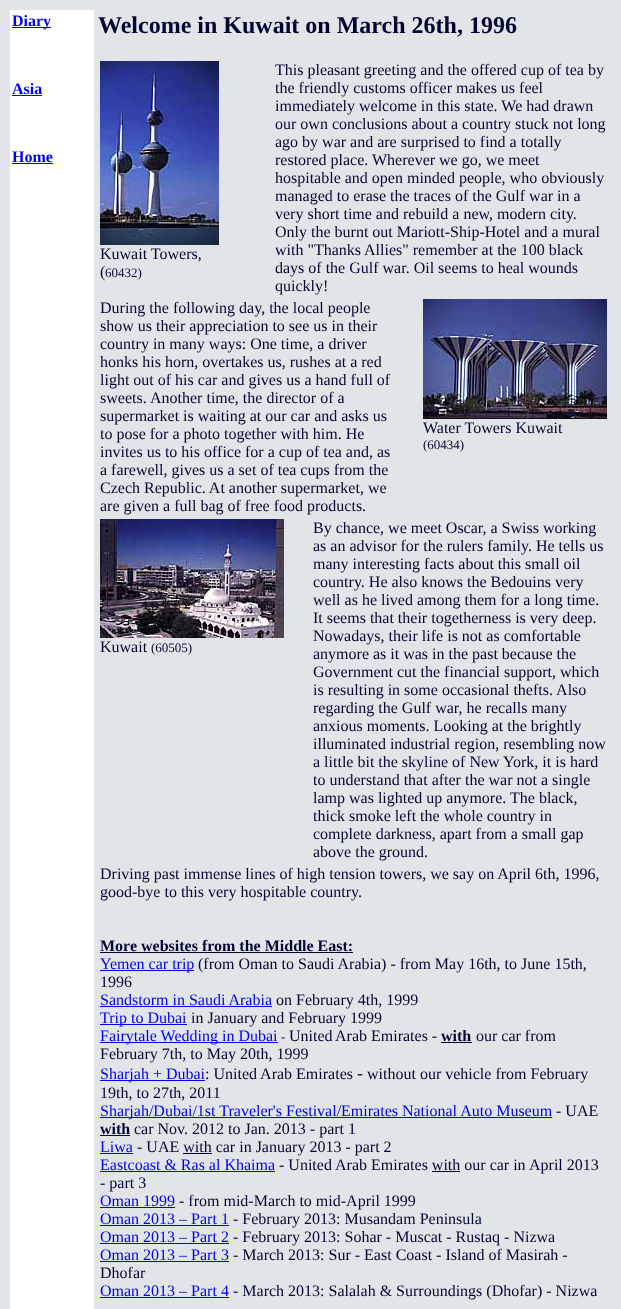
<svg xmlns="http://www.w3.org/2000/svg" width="621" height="1309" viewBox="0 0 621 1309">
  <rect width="100%" height="100%" fill="#e1e5e8"/>
  <path d="M10 10h84v1299H10z" fill="#fff"/>
  <path d="M12 27h39v1H12z" fill="#00e"/>
  <path d="M12 95h30v1H12z" fill="#00e"/>
  <path d="M12 163h41v1H12z" fill="#00e"/>
  <image x="100" y="61" width="119" height="184" href="img/1.png"/>
  <image x="423" y="299" width="184" height="120" href="img/2.png"/>
  <image x="100" y="519" width="184" height="119" href="img/3.png"/>
  <path d="M100 952h253v1H100z" fill="#020633"/>
  <path d="M100 970h94v1H100z" fill="#00e"/>
  <path d="M100 1006h172v1H100z" fill="#00e"/>
  <path d="M100 1024h87v1H100z" fill="#00e"/>
  <path d="M100 1042h178v1H100z" fill="#00e"/>
  <path d="M441 1042h31v1H441z" fill="#020633"/>
  <path d="M100 1080h105v1H100z" fill="#00e"/>
  <path d="M100 1117h452v1H100z" fill="#00e"/>
  <path d="M100 1135h30v1H100z" fill="#020633"/>
  <path d="M100 1153h33v1H100z" fill="#00e"/>
  <path d="M183 1153h29v1H183z" fill="#020633"/>
  <path d="M100 1171h175v1H100z" fill="#00e"/>
  <path d="M432 1171h28v1H432z" fill="#020633"/>
  <path d="M100 1207h75v1H100z" fill="#00e"/>
  <path d="M100 1225h129v1H100z" fill="#00e"/>
  <path d="M100 1243h129v1H100z" fill="#00e"/>
  <path d="M100 1261h129v1H100z" fill="#00e"/>
  <path d="M100 1297h129v1H100z" fill="#00e"/>
  <g font-family="Liberation Serif" font-size="16" font-weight="bold" fill="#00e">
    <text x="12" y="26">Diary</text>
    <text x="12" y="94">Asia</text>
    <text x="12" y="162">Home</text>
  </g>
  <text x="98" y="33" font-family="Liberation Serif" font-size="24" font-weight="bold" fill="#020633">Welcome in Kuwait on March 26th, 1996</text>
  <g font-family="Liberation Serif" font-size="16" fill="#020633">
    <text x="100" y="259">Kuwait Towers,</text>
    <text x="100" y="277">(</text>
  </g>
  <text x="105" y="277" font-family="Liberation Serif" font-size="13" fill="#020633">60432)</text>
  <g font-family="Liberation Serif" font-size="16" fill="#020633">
    <text x="275" y="75">This pleasant greeting and the offered cup of tea by</text>
    <text x="275" y="93">the friendly customs officer makes us feel</text>
    <text x="275" y="111">immediately welcome in this state. We had drawn</text>
    <text x="275" y="129">our own conclusions about a country stuck not long</text>
    <text x="275" y="147">ago by war and are surprised to find a totally</text>
    <text x="275" y="165">restored place. Wherever we go, we meet</text>
    <text x="275" y="183">hospitable and open minded people, who obviously</text>
    <text x="275" y="201">managed to erase the traces of the Gulf war in a</text>
    <text x="275" y="219">very short time and rebuild a new, modern city.</text>
    <text x="275" y="237">Only the burnt out Mariott-Ship-Hotel and a mural</text>
    <text x="275" y="255">with "Thanks</text>
    <text x="364" y="255">Allies" remember at the 100 black</text>
    <text x="275" y="273">days of the Gulf war. Oil seems to heal wounds</text>
    <text x="275" y="291">quickly!</text>
    <text x="100" y="313">During the following day, the local people</text>
    <text x="100" y="331">show us their appreciation to see us in their</text>
    <text x="100" y="349">country in many ways: One time, a driver</text>
    <text x="100" y="367">honks his horn, overtakes us, rushes at a red</text>
    <text x="100" y="385">light out of his car and gives us a hand full of</text>
    <text x="100" y="403">sweets.</text>
    <text x="150" y="403">Another time, the director of a</text>
    <text x="100" y="421">supermarket is waiting at our car and asks us</text>
    <text x="100" y="439">to pose for a photo together with him. He</text>
    <text x="100" y="457">invites us to his office for a cup of tea and, as</text>
    <text x="100" y="475">a farewell, gives us a set of tea cups from the</text>
    <text x="100" y="493">Czech Republic. At another supermarket, we</text>
    <text x="100" y="511">are given a full bag of free food products.</text>
    <text x="423" y="433">Water Towers Kuwait</text>
  </g>
  <text x="423" y="449" font-family="Liberation Serif" font-size="13" fill="#020633">(60434)</text>
  <text x="100" y="652" font-family="Liberation Serif" font-size="16" fill="#020633">Kuwait</text>
  <text x="151" y="652" font-family="Liberation Serif" font-size="13" fill="#020633">(60505)</text>
  <g font-family="Liberation Serif" font-size="16" fill="#020633">
    <text x="313" y="533">By chance, we meet Oscar, a Swiss working</text>
    <text x="313" y="551">as an advisor for the rulers family. He tells us</text>
    <text x="313" y="569">many interesting facts about this small oil</text>
    <text x="313" y="587">country. He also knows the Bedouins very</text>
    <text x="313" y="605">well as he lived among them for a long time.</text>
    <text x="313" y="623">It seems that their togetherness is very deep.</text>
    <text x="313" y="641">Nowadays, their life is not as comfortable</text>
    <text x="313" y="659">anymore as it was in the past because the</text>
    <text x="313" y="677">Government cut the financial support, which</text>
    <text x="313" y="695">is resulting in some occasional thefts. Also</text>
    <text x="313" y="713">regarding the Gulf war, he recalls many</text>
    <text x="313" y="731">anxious moments. Looking at the brightly</text>
    <text x="313" y="749">illuminated industrial region, resembling now</text>
    <text x="313" y="767">a little bit the skyline of New York, it is hard</text>
    <text x="313" y="785">to understand that after the war not a single</text>
    <text x="313" y="803">lamp was lighted up anymore. The black,</text>
    <text x="313" y="821">thick smoke left the whole country in</text>
    <text x="313" y="839">complete darkness, apart from a small gap</text>
    <text x="313" y="857">above the ground.</text>
    <text x="100" y="879">Driving past immense lines of high tension towers, we say on April 6th, 1996,</text>
    <text x="100" y="897">good-bye to this very hospitable country.</text>
  </g>
  <text x="100" y="951" font-family="Liberation Serif" font-size="16" font-weight="bold" fill="#020633">More websites from the Middle East:</text>
  <text x="100" y="969" font-family="Liberation Serif" font-size="16" fill="#00e">Yemen car trip</text>
  <g font-family="Liberation Serif" font-size="16" fill="#020633">
    <text x="198" y="969">(from Oman to Saudi Arabia) - from May 16th, to June 15th,</text>
    <text x="100" y="987">1996</text>
  </g>
  <text x="100" y="1005" font-family="Liberation Serif" font-size="16" fill="#00e">Sandstorm in Saudi Arabia</text>
  <text x="276" y="1005" font-family="Liberation Serif" font-size="16" fill="#020633">on February 4th, 1999</text>
  <text x="100" y="1023" font-family="Liberation Serif" font-size="16" fill="#00e">Trip to Dubai</text>
  <text x="191" y="1023" font-family="Liberation Serif" font-size="16" fill="#020633">in January and February 1999</text>
  <text x="100" y="1041" font-family="Liberation Serif" font-size="16" fill="#00e">Fairytale Wedding in Dubai</text>
  <text x="281" y="1041" font-family="Liberation Serif" font-size="13" fill="#020633">-</text>
  <g font-family="Liberation Serif" font-size="16" fill="#020633">
    <text x="289" y="1041">United</text>
    <text x="335" y="1041">Arab Emirates -</text>
  </g>
  <text x="441" y="1041" font-family="Liberation Serif" font-size="16" font-weight="bold" fill="#020633">with</text>
  <g font-family="Liberation Serif" font-size="16" fill="#020633">
    <text x="476" y="1041">our car from</text>
    <text x="100" y="1059">February 7th, to May 20th, 1999</text>
  </g>
  <text x="100" y="1079" font-family="Liberation Serif" font-size="16" fill="#00e">Sharjah + Dubai</text>
  <text x="205" y="1079" font-family="Liberation Serif" font-size="16" fill="#020633">: United Arab Emirates</text>
  <text x="357" y="1079" font-family="Liberation Serif" font-size="18" fill="#020633">-</text>
  <g font-family="Liberation Serif" font-size="16" fill="#020633">
    <text x="367" y="1079">without our vehicle from February</text>
    <text x="100" y="1098">19th, to 27th, 2011</text>
  </g>
  <text x="100" y="1116" font-family="Liberation Serif" font-size="16" fill="#00e">Sharjah/Dubai/1st Traveler's Festival/Emirates National Auto Museum</text>
  <text x="556" y="1116" font-family="Liberation Serif" font-size="16" fill="#020633">- UAE</text>
  <text x="100" y="1134" font-family="Liberation Serif" font-size="16" font-weight="bold" fill="#020633">with</text>
  <text x="134" y="1134" font-family="Liberation Serif" font-size="16" fill="#020633">car Nov. 2012 to Jan. 2013 - part 1</text>
  <text x="100" y="1152" font-family="Liberation Serif" font-size="16" fill="#00e">Liwa</text>
  <text x="137" y="1152" font-family="Liberation Serif" font-size="16" fill="#020633">- UAE with car in January 2013 - part 2</text>
  <text x="100" y="1170" font-family="Liberation Serif" font-size="16" fill="#00e">Eastcoast &amp; Ras al Khaima</text>
  <g font-family="Liberation Serif" font-size="16" fill="#020633">
    <text x="279" y="1170">- United</text>
    <text x="335" y="1170">Arab Emirates with our car in</text>
    <text x="529" y="1170">April 2013</text>
    <text x="100" y="1188">- part 3</text>
  </g>
  <text x="100" y="1206" font-family="Liberation Serif" font-size="16" fill="#00e">Oman 1999</text>
  <text x="179" y="1206" font-family="Liberation Serif" font-size="16" fill="#020633">- from mid-March to mid-April 1999</text>
  <text x="100" y="1224" font-family="Liberation Serif" font-size="16" fill="#00e">Oman 2013 – Part 1</text>
  <text x="233" y="1224" font-family="Liberation Serif" font-size="16" fill="#020633">- February 2013: Musandam Peninsula</text>
  <text x="100" y="1242" font-family="Liberation Serif" font-size="16" fill="#00e">Oman 2013 – Part 2</text>
  <text x="233" y="1242" font-family="Liberation Serif" font-size="16" fill="#020633">- February 2013: Sohar - Muscat - Rustaq - Nizwa</text>
  <text x="100" y="1260" font-family="Liberation Serif" font-size="16" fill="#00e">Oman 2013 – Part 3</text>
  <g font-family="Liberation Serif" font-size="16" fill="#020633">
    <text x="233" y="1260">- March 2013: Sur - East Coast - Island of Masirah -</text>
    <text x="100" y="1278">Dhofar</text>
  </g>
  <text x="100" y="1296" font-family="Liberation Serif" font-size="16" fill="#00e">Oman 2013 – Part 4</text>
  <text x="233" y="1296" font-family="Liberation Serif" font-size="16" fill="#020633">- March 2013: Salalah &amp; Surroundings (Dhofar) - Nizwa</text>
</svg>
